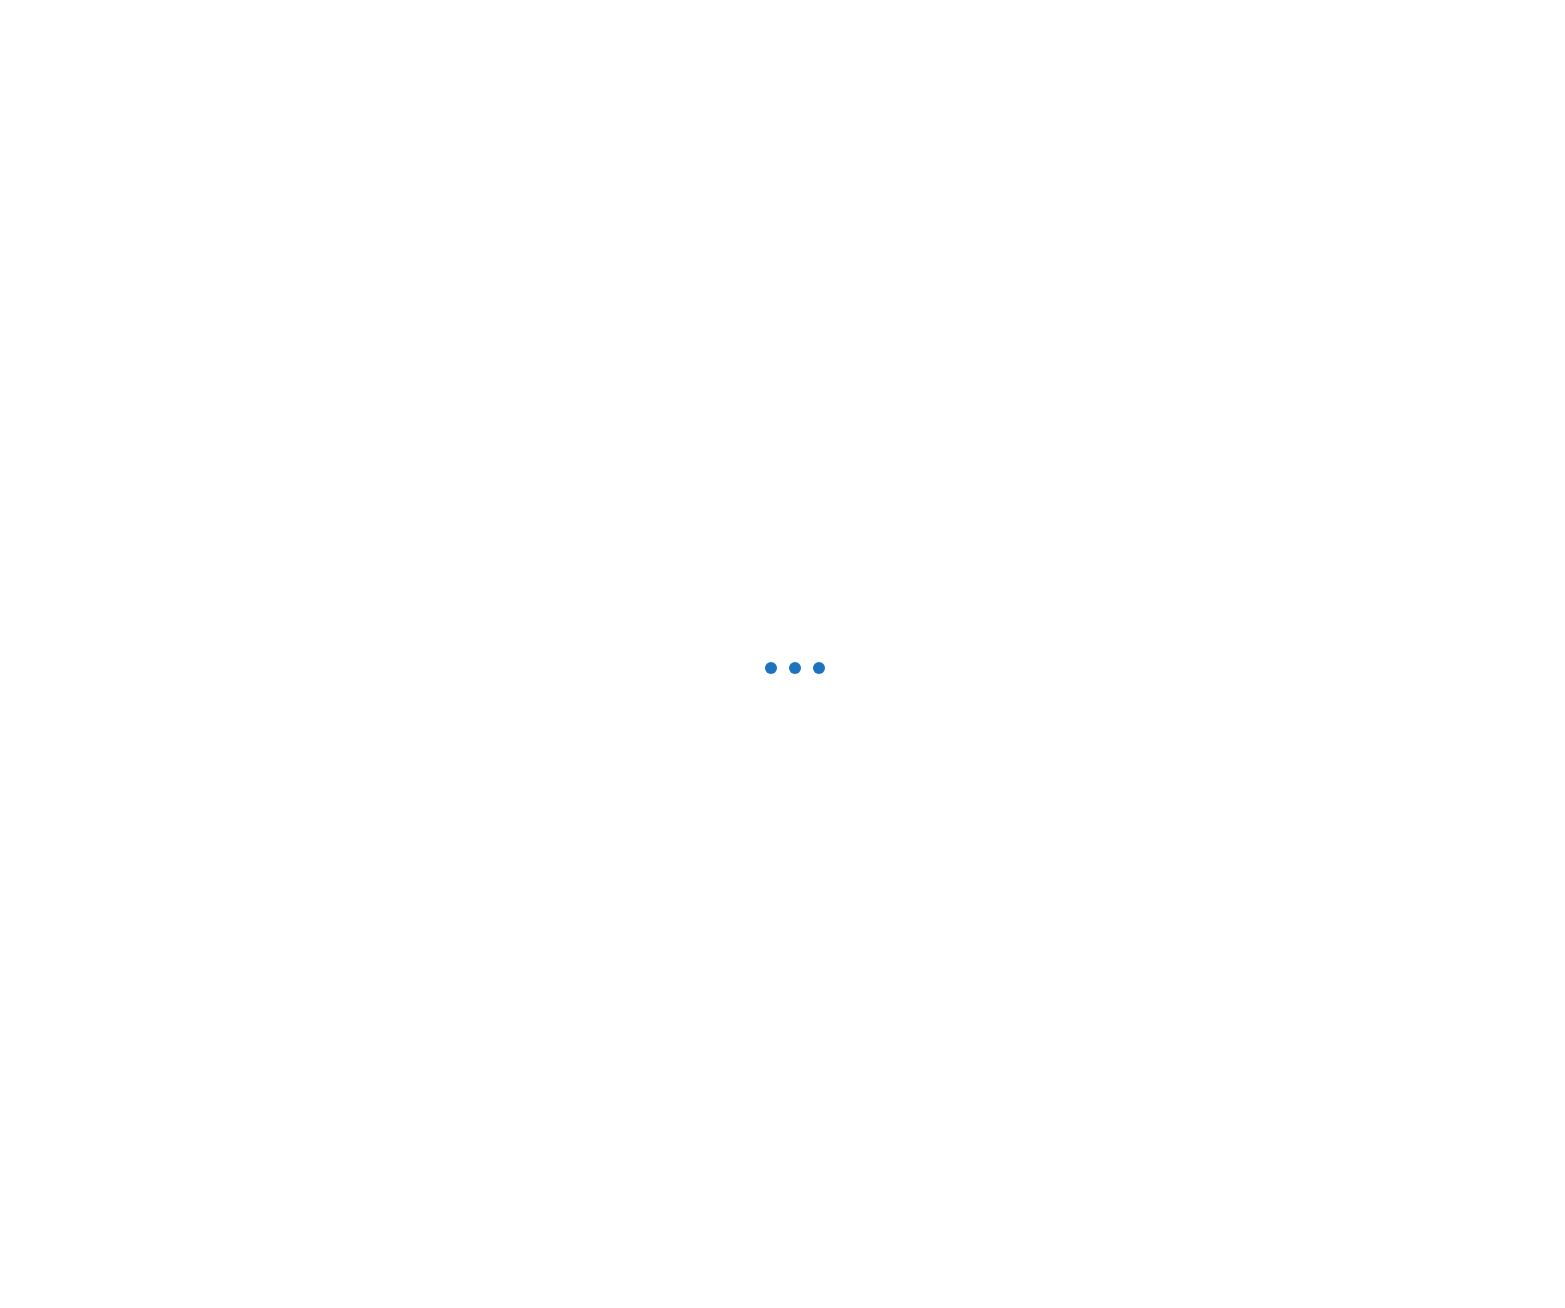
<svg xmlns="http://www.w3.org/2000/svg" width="1565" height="1308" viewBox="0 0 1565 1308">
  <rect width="100%" height="100%" fill="#fff"/>
  <circle cx="771" cy="668" r="6" fill="#1e73be"/>
  <circle cx="795" cy="668" r="6" fill="#1e73be"/>
  <circle cx="819" cy="668" r="6" fill="#1e73be"/>
</svg>
